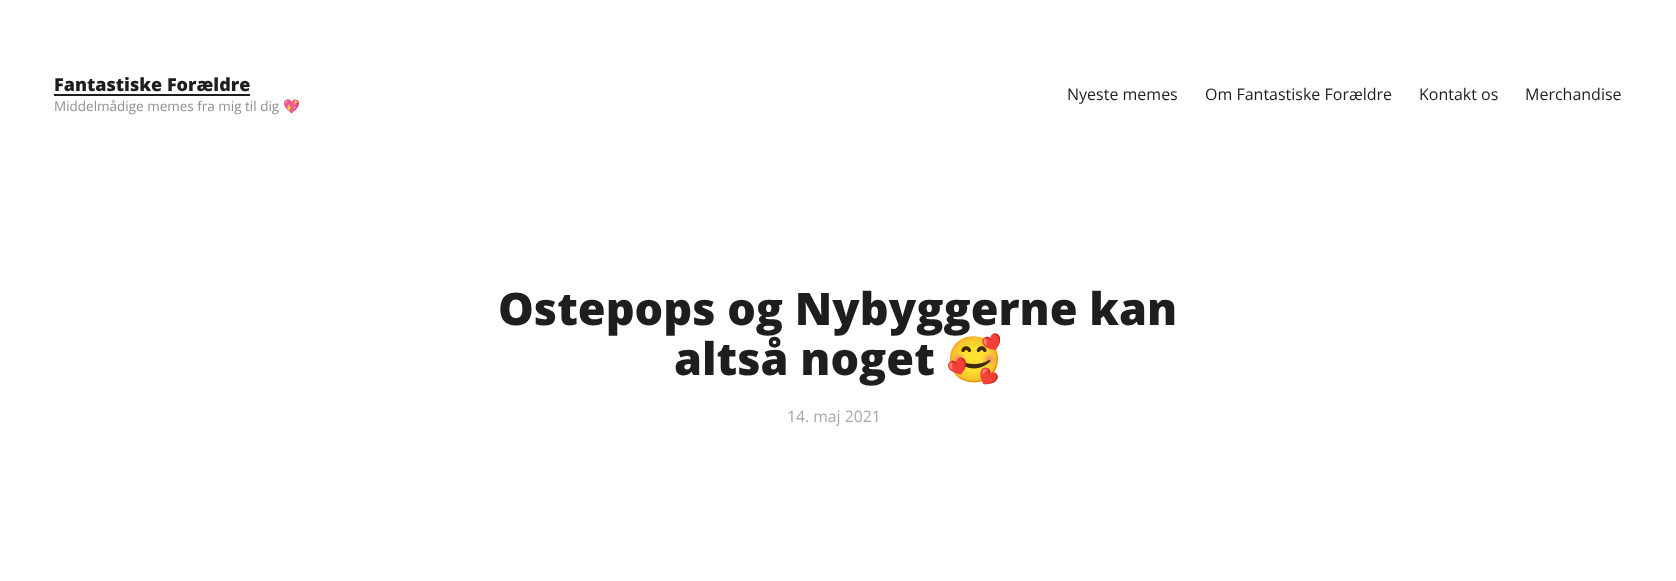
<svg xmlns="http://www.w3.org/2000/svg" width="1676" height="581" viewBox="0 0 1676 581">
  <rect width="100%" height="100%" fill="#fff"/>
  <path d="M54 94h196v2H54z" fill="#1e1e1e"/>
  <text x="54" y="91" font-family="Open Sans" font-size="18" font-weight="800" fill="#1e1e1e">Fantastiske Forældre</text>
  <text x="54" y="111" font-family="Open Sans" font-size="13.5" fill="#919191">Middelmådige memes fra mig til dig</text>
  <text x="283" y="111" font-family="Noto Color Emoji" font-size="13.5" fill="#919191">💖</text>
  <g font-family="Open Sans" font-size="16" fill="#1e1e1e">
    <text x="1067" y="100">Nyeste memes</text>
    <text x="1205" y="100">Om Fantastiske Forældre</text>
    <text x="1419" y="100">Kontakt os</text>
    <text x="1525" y="100">Merchandise</text>
  </g>
  <g font-family="Open Sans" font-size="45" font-weight="800" fill="#1e1e1e">
    <text x="498" y="325">Ostepops og Nybyggerne kan</text>
    <text x="674" y="375">altså noget</text>
  </g>
  <text x="946" y="375" font-family="Noto Color Emoji" font-size="45" font-weight="bold" fill="#1e1e1e">🥰</text>
  <text x="787" y="422" font-family="Open Sans" font-size="15.75" fill="#a7a7a7">14. maj 2021</text>
</svg>
